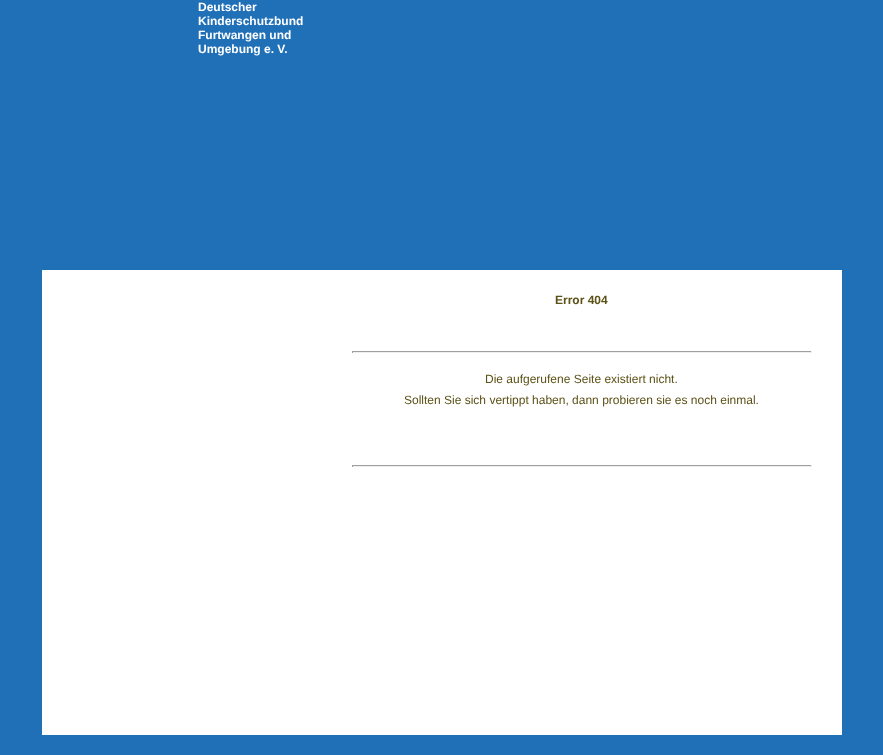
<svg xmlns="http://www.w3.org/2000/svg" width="883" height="755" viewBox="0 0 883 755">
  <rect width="100%" height="100%" fill="#2070b8"/>
  <path d="M42 270h800v465H42z" fill="#fff"/>
  <path d="M352 351h460v1H352z" fill="#9f9f9f"/>
  <path d="M811 351h1v2H811z" fill="#eee"/>
  <path d="M352 352h460v1H352z" fill="#eee"/>
  <path d="M352 351h1v2H352z" fill="#9f9f9f"/>
  <path d="M352 465h460v1H352z" fill="#9f9f9f"/>
  <path d="M811 465h1v2H811z" fill="#eee"/>
  <path d="M352 466h460v1H352z" fill="#eee"/>
  <path d="M352 465h1v2H352z" fill="#9f9f9f"/>
  <g font-family="Liberation Sans" font-size="12" font-weight="bold" fill="#fff">
    <text x="198" y="11">Deutscher</text>
    <text x="198" y="25">Kinderschutzbund</text>
    <text x="198" y="39">Furtwangen und</text>
    <text x="198" y="53">Umgebung e. V.</text>
  </g>
  <text x="555" y="304" font-family="Liberation Sans" font-size="12" font-weight="bold" fill="#5c5116">Error 404</text>
  <g font-family="Liberation Sans" font-size="12" fill="#5c5116">
    <text x="485" y="383">Die aufgerufene Seite existiert nicht.</text>
    <text x="404" y="404">Sollten Sie sich vertippt haben, dann probieren sie es noch einmal.</text>
  </g>
</svg>
